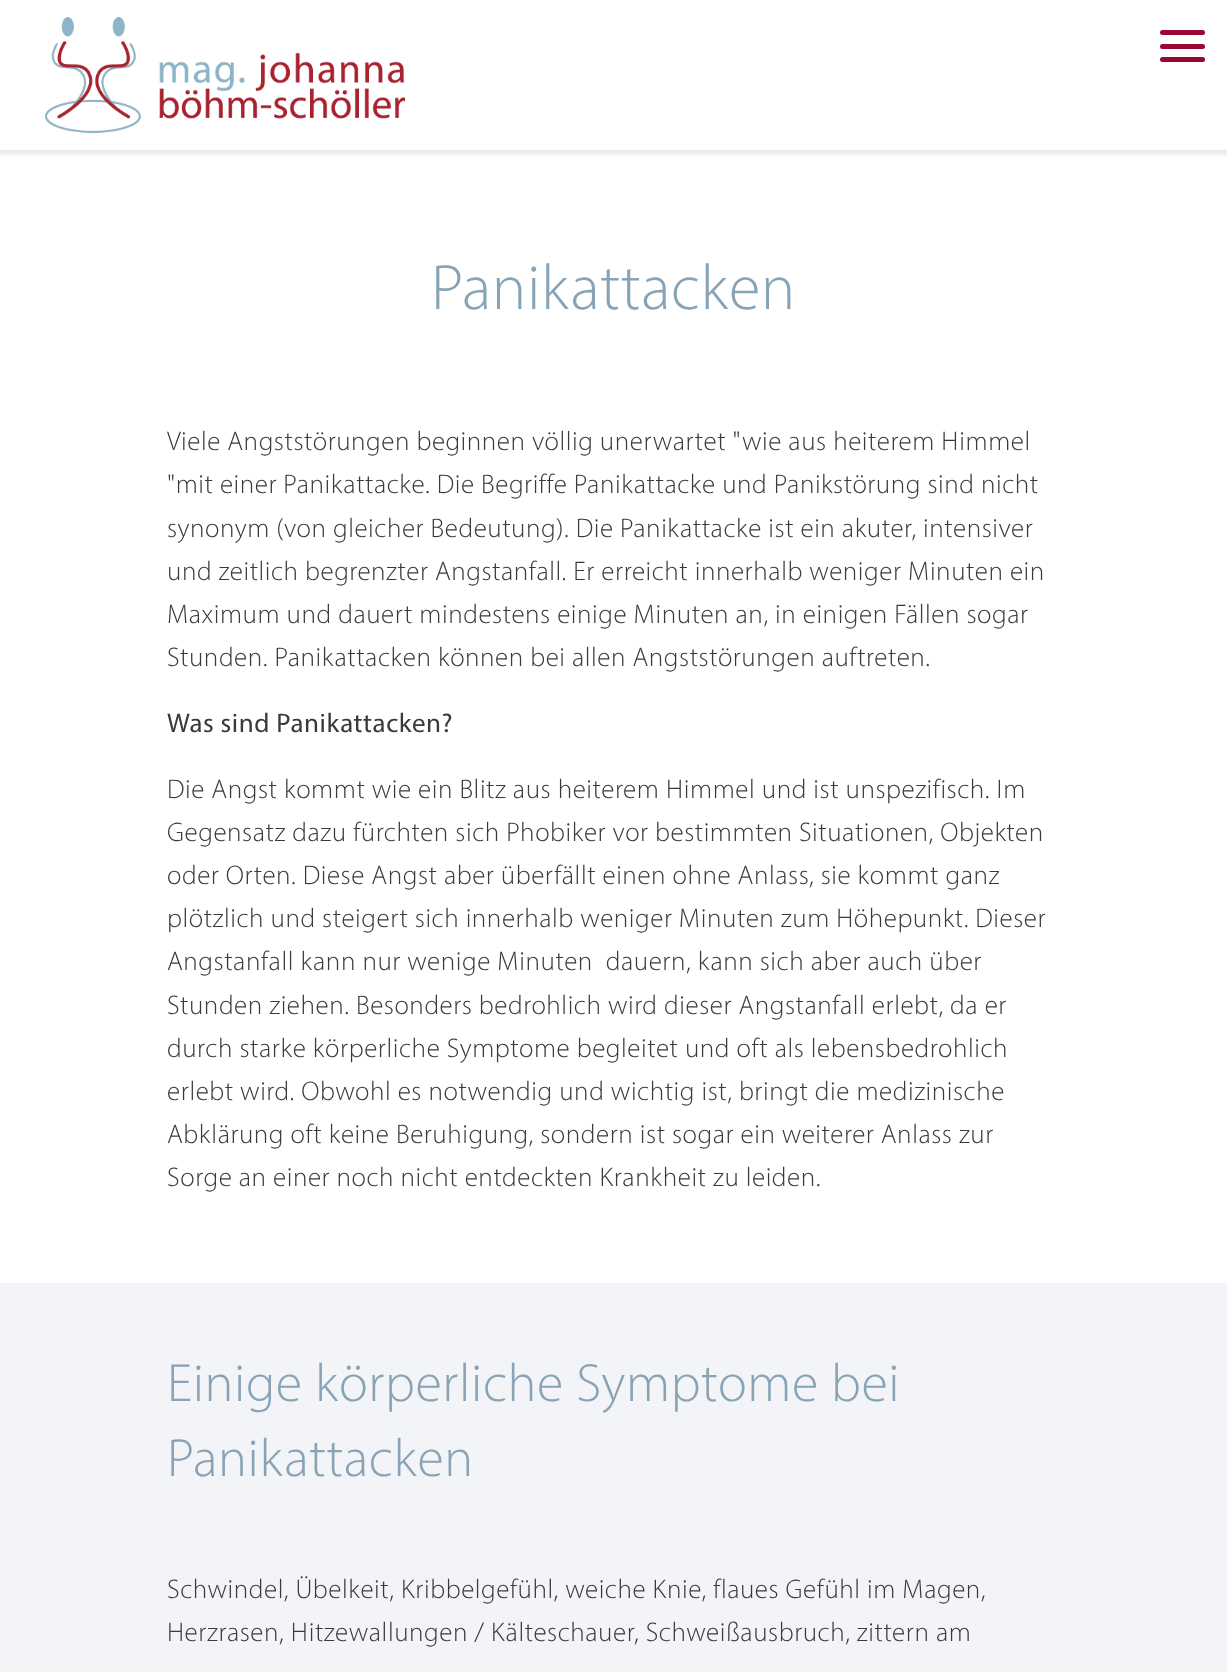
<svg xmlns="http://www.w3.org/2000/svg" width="1227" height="1672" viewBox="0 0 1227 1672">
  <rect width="100%" height="100%" fill="#fff"/>
  <path d="M-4 -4h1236v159H-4z" fill="#3333331a" filter="blur(2px)"/>
  <path d="M0 0h1227v150H0z" fill="#fff"/>
  <rect x="1160" y="44" width="45" height="5" rx="2.5" fill="#9a0732"/>
  <rect x="1160" y="30" width="45" height="5" rx="2.5" fill="#9a0732"/>
  <rect x="1160" y="57" width="45" height="5" rx="2.5" fill="#9a0732"/>
  <image x="45" y="17" width="360" height="116" href="img/1.png"/>
  <path d="M0 1283h1227v389H0z" fill="#f3f4f7"/>
  <text x="431" y="309" font-family="Myriad" font-size="64.5" font-weight="300" letter-spacing="0.55" fill="#87a3b5">Panikattacken</text>
  <g font-family="Myriad" font-size="27" font-weight="300" letter-spacing="0.55" fill="#393a3e">
    <text x="167" y="450">Viele Angststörungen beginnen völlig unerwartet "wie aus heiterem Himmel</text>
    <text x="167" y="493">"mit einer Panikattacke. Die Begriffe Panikattacke und Panikstörung sind nicht</text>
    <text x="167" y="537">synonym (von gleicher Bedeutung). Die Panikattacke ist ein akuter, intensiver</text>
    <text x="167" y="580">und zeitlich begrenzter Angstanfall. Er erreicht innerhalb weniger Minuten ein</text>
    <text x="167" y="623">Maximum und dauert mindestens einige Minuten an, in einigen Fällen sogar</text>
    <text x="167" y="666">Stunden. Panikattacken können bei allen Angststörungen auftreten.</text>
  </g>
  <text x="167" y="732" font-family="Myriad" font-size="27" letter-spacing="0.55" fill="#393a3e">Was sind Panikattacken?</text>
  <g font-family="Myriad" font-size="27" font-weight="300" letter-spacing="0.55" fill="#393a3e">
    <text x="167" y="798">Die Angst kommt wie ein Blitz aus heiterem Himmel und ist unspezifisch. Im</text>
    <text x="167" y="841">Gegensatz dazu fürchten sich Phobiker vor bestimmten Situationen, Objekten</text>
    <text x="167" y="884">oder Orten. Diese Angst aber überfällt einen ohne Anlass, sie kommt ganz</text>
    <text x="167" y="927">plötzlich und steigert sich innerhalb weniger Minuten zum Höhepunkt. Dieser</text>
    <text x="167" y="970" xml:space="preserve">Angstanfall kann nur wenige Minuten  dauern, kann sich aber auch über</text>
    <text x="167" y="1014">Stunden ziehen. Besonders bedrohlich wird dieser Angstanfall erlebt, da er</text>
    <text x="167" y="1057">durch starke körperliche Symptome begleitet und oft als lebensbedrohlich</text>
    <text x="167" y="1100">erlebt wird. Obwohl es notwendig und wichtig ist, bringt die medizinische</text>
    <text x="167" y="1143">Abklärung oft keine Beruhigung, sondern ist sogar ein weiterer Anlass zur</text>
    <text x="167" y="1186">Sorge an einer noch nicht entdeckten Krankheit zu leiden.</text>
  </g>
  <g font-family="Myriad" font-size="54" font-weight="300" letter-spacing="0.55" fill="#87a3b5">
    <text x="167" y="1401">Einige körperliche Symptome bei</text>
    <text x="167" y="1476">Panikattacken</text>
  </g>
  <g font-family="Myriad" font-size="27" font-weight="300" letter-spacing="0.55" fill="#393a3e">
    <text x="167" y="1598">Schwindel, Übelkeit, Kribbelgefühl, weiche Knie, flaues Gefühl im Magen,</text>
    <text x="167" y="1641">Herzrasen, Hitzewallungen / Kälteschauer, Schweißausbruch, zittern am</text>
  </g>
</svg>
